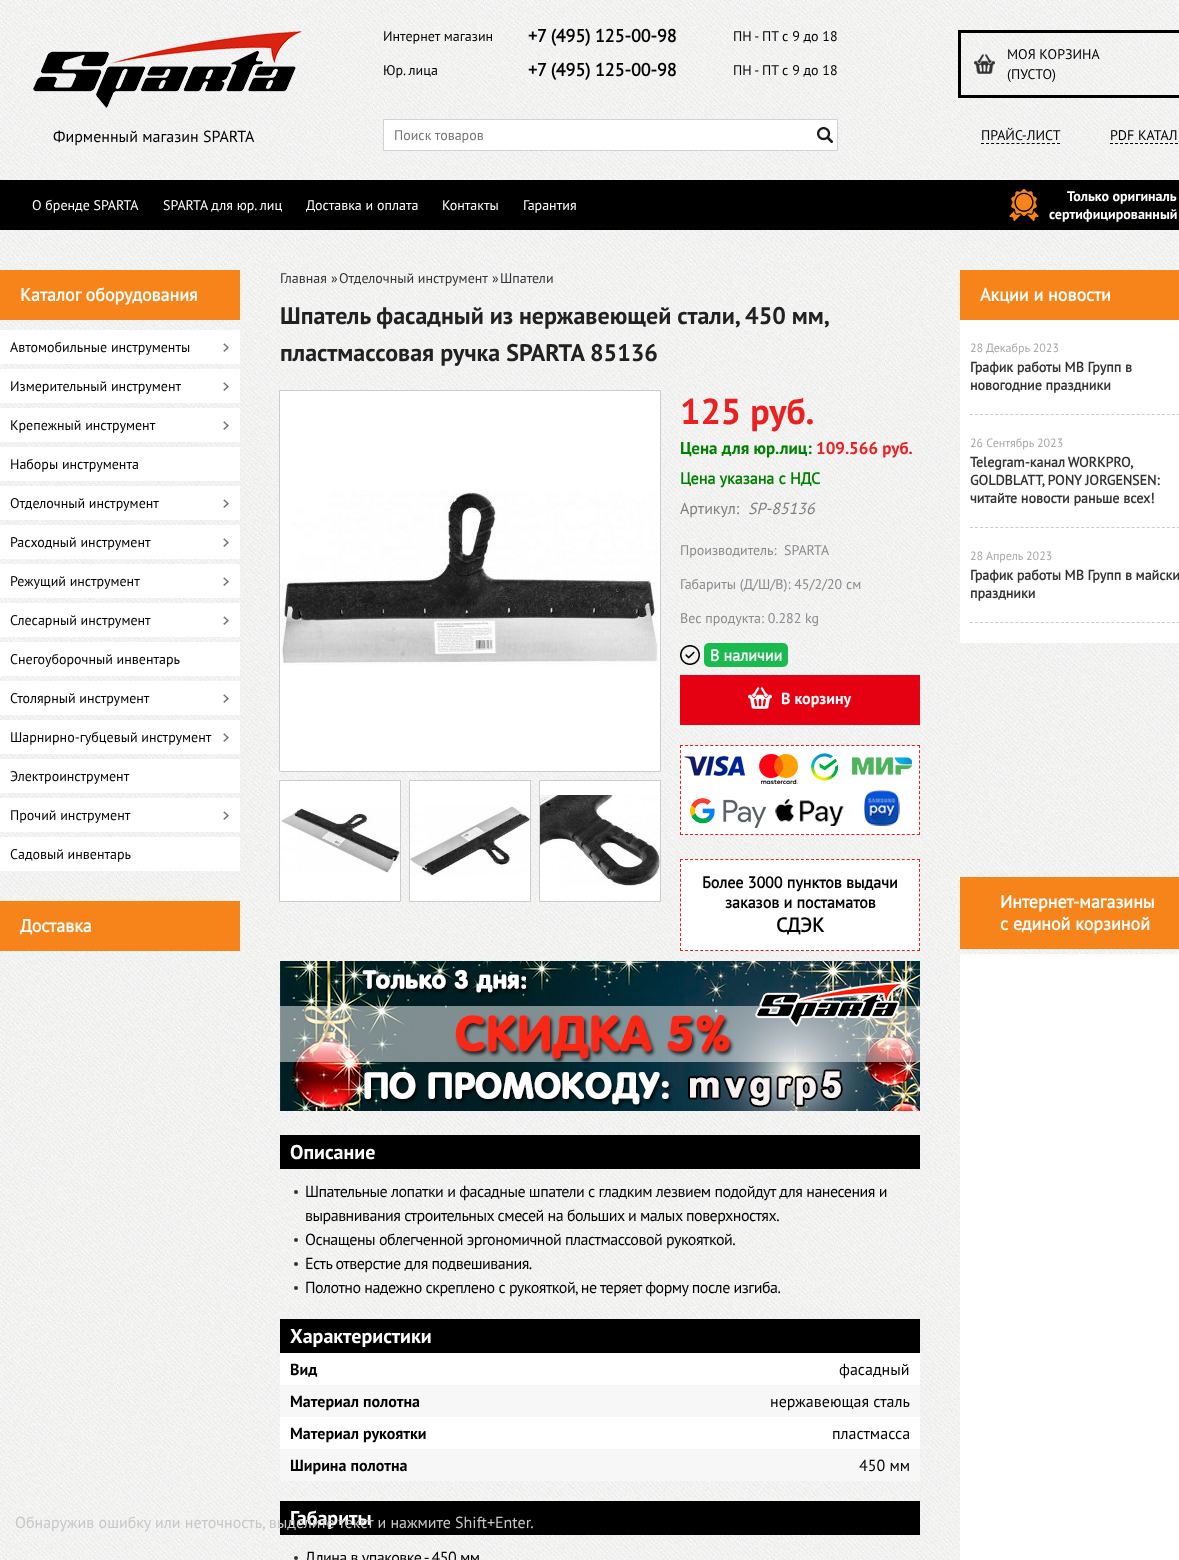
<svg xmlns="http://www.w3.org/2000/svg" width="1179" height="1560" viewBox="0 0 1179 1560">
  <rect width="100%" height="100%" fill="#fff"/>
  <image x="0" y="0" width="1179" height="1560" href="img/1.png"/>
  <image x="33" y="31" width="269" height="77" href="img/2.png"/>
  <path d="M383.5 119.5h454v31H383.5z" fill="#fff" stroke="#d1d1d7"/>
  <image x="817" y="127" width="16" height="16" href="img/3.png"/>
  <path d="M959.5 31.5h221v65H959.5z" fill="none" stroke="#000" stroke-width="3"/>
  <image x="974" y="54" width="21" height="20" href="img/4.png"/>
  <path d="M981 143.5H1060" fill="none" stroke="#000" stroke-dasharray="3 2.07"/>
  <path d="M1110 143.5H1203" fill="none" stroke="#000" stroke-dasharray="3 2"/>
  <path d="M0 180h1179v50H0z" fill="#000"/>
  <image x="1009" y="189" width="30" height="32" href="img/5.png"/>
  <path d="M0 270h240v50H0z" fill="#f7841a"/>
  <path d="M0 330h240v34H0z" fill="#fff"/>
  <image x="223" y="343" width="6" height="9" href="img/6.png"/>
  <path d="M0 369h240v34H0z" fill="#fff"/>
  <image x="223" y="382" width="6" height="9" href="img/6.png"/>
  <path d="M0 408h240v34H0z" fill="#fff"/>
  <image x="223" y="421" width="6" height="9" href="img/6.png"/>
  <path d="M0 447h240v34H0z" fill="#fff"/>
  <path d="M0 486h240v34H0z" fill="#fff"/>
  <image x="223" y="499" width="6" height="9" href="img/6.png"/>
  <path d="M0 525h240v34H0z" fill="#fff"/>
  <image x="223" y="538" width="6" height="9" href="img/6.png"/>
  <path d="M0 564h240v34H0z" fill="#fff"/>
  <image x="223" y="577" width="6" height="9" href="img/6.png"/>
  <path d="M0 603h240v34H0z" fill="#fff"/>
  <image x="223" y="616" width="6" height="9" href="img/6.png"/>
  <path d="M0 642h240v34H0z" fill="#fff"/>
  <path d="M0 681h240v34H0z" fill="#fff"/>
  <image x="223" y="694" width="6" height="9" href="img/6.png"/>
  <path d="M0 720h240v34H0z" fill="#fff"/>
  <image x="223" y="733" width="6" height="9" href="img/6.png"/>
  <path d="M0 759h240v34H0z" fill="#fff"/>
  <path d="M0 798h240v34H0z" fill="#fff"/>
  <image x="223" y="811" width="6" height="9" href="img/6.png"/>
  <path d="M0 837h240v34H0z" fill="#fff"/>
  <path d="M0 901h240v50H0z" fill="#f7841a"/>
  <path d="M279.5 390.5h381v381H279.5z" fill="none" stroke="#ccc"/>
  <path d="M280 391h380v380H280z" fill="#fff"/>
  <image x="280" y="490" width="378" height="176" href="img/7.png"/>
  <path d="M279.5 780.5h121v121H279.5z" fill="none" stroke="#ccc"/>
  <path d="M280 781h120v120H280z" fill="#fff"/>
  <image x="280" y="808" width="120" height="65" href="img/8.png"/>
  <path d="M409.5 780.5h121v121H409.5z" fill="none" stroke="#ccc"/>
  <path d="M410 781h120v120H410z" fill="#fff"/>
  <image x="410" y="806" width="120" height="70" href="img/9.png"/>
  <path d="M539.5 780.5h121v121H539.5z" fill="none" stroke="#ccc"/>
  <path d="M540 781h120v120H540z" fill="#fff"/>
  <image x="540" y="795" width="120" height="91" href="img/10.png"/>
  <image x="680" y="645" width="20" height="20" href="img/11.png"/>
  <rect x="704" y="643" width="84" height="24" rx="5" fill="#19bb4f"/>
  <path d="M680 675h240v50H680z" fill="#e50112"/>
  <image x="748" y="687" width="24" height="22" href="img/12.png"/>
  <path d="M680 745.5H920" fill="none" stroke="#da251c" stroke-dasharray="3 2.04"/>
  <path d="M919.5 745V835" fill="none" stroke="#da251c" stroke-dasharray="3 2.12"/>
  <path d="M680 834.5H920" fill="none" stroke="#da251c" stroke-dasharray="3 2.04"/>
  <path d="M680.5 745V835" fill="none" stroke="#da251c" stroke-dasharray="3 2.12"/>
  <image x="681" y="746" width="238" height="88" href="img/13.png"/>
  <path d="M680 859h240v92H680z" fill="#fff"/>
  <path d="M680 859.5H920" fill="none" stroke="#da251c" stroke-dasharray="3 2.04"/>
  <path d="M919.5 859V951" fill="none" stroke="#da251c" stroke-dasharray="3 1.94"/>
  <path d="M680 950.5H920" fill="none" stroke="#da251c" stroke-dasharray="3 2.04"/>
  <path d="M680.5 859V951" fill="none" stroke="#da251c" stroke-dasharray="3 1.94"/>
  <image x="280" y="961" width="640" height="150" href="img/14.png"/>
  <path d="M280 1135h640v34H280z" fill="#000"/>
  <circle cx="296" cy="1192" r="2" fill="#333"/>
  <circle cx="296" cy="1240" r="2" fill="#333"/>
  <circle cx="296" cy="1264" r="2" fill="#333"/>
  <circle cx="296" cy="1288" r="2" fill="#333"/>
  <path d="M280 1319h640v34H280z" fill="#000"/>
  <path d="M280 1353h640v96H280z" fill="#fff"/>
  <path d="M280 1385h640v32H280z" fill="#f7f7f7"/>
  <path d="M280 1449h640v32H280z" fill="#f7f7f7"/>
  <path d="M280 1501h640v34H280z" fill="#000"/>
  <circle cx="296" cy="1558" r="2" fill="#333"/>
  <path d="M960 320h219v323H960z" fill="#fff"/>
  <path d="M960 270h219v50H960z" fill="#f7841a"/>
  <path d="M970 414.5H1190" fill="none" stroke="#ccc" stroke-dasharray="3 2.05"/>
  <path d="M970 527.5H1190" fill="none" stroke="#ccc" stroke-dasharray="3 2.05"/>
  <path d="M970 622.5H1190" fill="none" stroke="#ccc" stroke-dasharray="3 2.05"/>
  <path d="M960 877h219v72H960z" fill="#f7841a"/>
  <path d="M960 954h219v606H960z" fill="#fff"/>
  <text x="53" y="142" font-family="PT Sans" font-size="16" fill="#000">Фирменный магазин SPARTA</text>
  <text x="383" y="41" font-family="PT Sans" font-size="14" fill="#000">Интернет магазин</text>
  <text x="528" y="42" font-family="PT Sans" font-size="18" font-weight="bold" fill="#000">+7 (495) 125-00-98</text>
  <g font-family="PT Sans" font-size="14" fill="#000">
    <text x="733" y="41">ПН - ПТ с 9 до 18</text>
    <text x="383" y="75">Юр. лица</text>
  </g>
  <text x="528" y="76" font-family="PT Sans" font-size="18" font-weight="bold" fill="#000">+7 (495) 125-00-98</text>
  <text x="733" y="75" font-family="PT Sans" font-size="14" fill="#000">ПН - ПТ с 9 до 18</text>
  <text x="394" y="140" font-family="PT Sans" font-size="14" fill="#757575">Поиск товаров</text>
  <g font-family="PT Sans" font-size="14" fill="#000">
    <text x="1007" y="59">МОЯ КОРЗИНА</text>
    <text x="1007" y="79">(ПУСТО)</text>
    <text x="981" y="140">ПРАЙС-ЛИСТ</text>
    <text x="1110" y="140">PDF КАТАЛ</text>
  </g>
  <g font-family="PT Sans" font-size="14" fill="#fff">
    <text x="32" y="210">О бренде SPARTA</text>
    <text x="163" y="210">SPARTA для юр. лиц</text>
    <text x="306" y="210">Доставка и оплата</text>
    <text x="442" y="210">Контакты</text>
    <text x="523" y="210">Гарантия</text>
  </g>
  <g font-family="'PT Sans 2'" font-size="14" font-weight="bold" fill="#fff">
    <text x="1067" y="201">Только оригиналь</text>
    <text x="1049" y="219">сертифицированный</text>
  </g>
  <text x="20" y="301" font-family="PT Sans" font-size="18" font-weight="bold" fill="#fff">Каталог оборудования</text>
  <g font-family="PT Sans" font-size="14" fill="#000">
    <text x="10" y="352">Автомобильные инструменты</text>
    <text x="10" y="391">Измерительный инструмент</text>
    <text x="10" y="430">Крепежный инструмент</text>
    <text x="10" y="469">Наборы инструмента</text>
    <text x="10" y="508">Отделочный инструмент</text>
    <text x="10" y="547">Расходный инструмент</text>
    <text x="10" y="586">Режущий инструмент</text>
    <text x="10" y="625">Слесарный инструмент</text>
    <text x="10" y="664">Снегоуборочный инвентарь</text>
    <text x="10" y="703">Столярный инструмент</text>
    <text x="10" y="742">Шарнирно-губцевый инструмент</text>
    <text x="10" y="781">Электроинструмент</text>
    <text x="10" y="820">Прочий инструмент</text>
    <text x="10" y="859">Садовый инвентарь</text>
  </g>
  <text x="20" y="932" font-family="PT Sans" font-size="18" font-weight="bold" fill="#fff">Доставка</text>
  <g font-family="PT Sans" font-size="14" fill="#333">
    <text x="280" y="283">Главная</text>
    <text x="331" y="283">»</text>
    <text x="339" y="283">Отделочный инструмент</text>
    <text x="492" y="283">»</text>
    <text x="500" y="283">Шпатели</text>
  </g>
  <g font-family="'PT Sans 2'" font-size="24" font-weight="bold" fill="#212121">
    <text x="280" y="324" word-spacing="-0.25">Шпатель фасадный из нержавеющей стали, 450 мм,</text>
    <text x="280" y="361">пластмассовая ручка SPARTA 85136</text>
  </g>
  <text x="680" y="424" font-family="'PT Sans 2'" font-size="36" font-weight="bold" fill="#e92121">125 руб.</text>
  <text x="680" y="454" font-family="'PT Sans 2'" font-size="17" font-weight="bold" fill="#008000">Цена для юр.лиц:</text>
  <text x="816" y="454" font-family="'PT Sans 2'" font-size="17" font-weight="bold" fill="#e92121">109.566 руб.</text>
  <text x="680" y="484" font-family="PT Sans" font-size="16" font-weight="bold" fill="#008000">Цена указана с НДС</text>
  <text x="680" y="514" font-family="PT Sans" font-size="16" fill="#808080">Артикул:</text>
  <text x="748" y="514" font-family="PT Sans" font-size="16" font-style="italic" fill="#808080">SP-85136</text>
  <g font-family="PT Sans" font-size="14" fill="#8b8b8b">
    <text x="680" y="555">Производитель:</text>
    <text x="784" y="555">SPARTA</text>
    <text x="680" y="589">Габариты (Д/Ш/В): 45/2/20 см</text>
    <text x="680" y="623">Вес продукта: 0.282 kg</text>
  </g>
  <text x="710" y="661" font-family="PT Sans" font-size="16" font-weight="bold" fill="#fff">В наличии</text>
  <text x="781" y="704" font-family="'PT Sans 2'" font-size="16" font-weight="bold" fill="#fff">В корзину</text>
  <g font-family="PT Sans" font-size="16" font-weight="bold" fill="#000">
    <text x="702" y="888">Более 3000 пунктов выдачи</text>
    <text x="725" y="908">заказов и постаматов</text>
  </g>
  <text x="776" y="932" font-family="PT Sans" font-size="20" font-weight="bold" fill="#000">СДЭК</text>
  <text x="290" y="1159" font-family="'PT Sans 2'" font-size="20" font-weight="bold" fill="#fff">Описание</text>
  <g font-family="PT Sans" font-size="16" letter-spacing="-0.5" fill="#000">
    <text x="305" y="1197">Шпательные лопатки и фасадные шпатели с гладким лезвием подойдут для нанесения и</text>
    <text x="305" y="1221">выравнивания строительных смесей на больших и малых поверхностях.</text>
    <text x="305" y="1245">Оснащены облегченной эргономичной пластмассовой рукояткой.</text>
    <text x="305" y="1269">Есть отверстие для подвешивания.</text>
    <text x="305" y="1293">Полотно надежно скреплено с рукояткой, не теряет форму после изгиба.</text>
  </g>
  <text x="290" y="1343" font-family="'PT Sans 2'" font-size="20" font-weight="bold" fill="#fff">Характеристики</text>
  <text x="290" y="1375" font-family="'PT Sans 2'" font-size="16" font-weight="bold" fill="#000">Вид</text>
  <text x="839" y="1375" font-family="PT Sans" font-size="16" fill="#000">фасадный</text>
  <text x="290" y="1407" font-family="'PT Sans 2'" font-size="16" font-weight="bold" fill="#000">Материал полотна</text>
  <text x="770" y="1407" font-family="PT Sans" font-size="16" fill="#000">нержавеющая сталь</text>
  <text x="290" y="1439" font-family="'PT Sans 2'" font-size="16" font-weight="bold" fill="#000">Материал рукоятки</text>
  <text x="832" y="1439" font-family="PT Sans" font-size="16" fill="#000">пластмасса</text>
  <text x="290" y="1471" font-family="'PT Sans 2'" font-size="16" font-weight="bold" fill="#000">Ширина полотна</text>
  <text x="859" y="1471" font-family="PT Sans" font-size="16" fill="#000">450 мм</text>
  <text x="290" y="1525" font-family="'PT Sans 2'" font-size="20" font-weight="bold" fill="#fff">Габариты</text>
  <text x="305" y="1563" font-family="PT Sans" font-size="16" letter-spacing="-0.5" fill="#000">Длина в упаковке - 450 мм</text>
  <text x="980" y="301" font-family="PT Sans" font-size="18" font-weight="bold" fill="#fff">Акции и новости</text>
  <text x="970" y="352" font-family="PT Sans" font-size="12" fill="#a6a9aa">28 Декабрь 2023</text>
  <g font-family="PT Sans" font-size="14" font-weight="bold" fill="#333">
    <text x="970" y="372">График работы МВ Групп в</text>
    <text x="970" y="390">новогодние праздники</text>
  </g>
  <text x="970" y="447" font-family="PT Sans" font-size="12" fill="#a6a9aa">26 Сентябрь 2023</text>
  <g font-family="PT Sans" font-size="14" font-weight="bold" fill="#333">
    <text x="970" y="467" word-spacing="-1">Telegram-канал WORKPRO,</text>
    <text x="970" y="485">GOLDBLATT, PONY JORGENSEN:</text>
    <text x="970" y="503">читайте новости раньше всех!</text>
  </g>
  <text x="970" y="560" font-family="PT Sans" font-size="12" fill="#a6a9aa">28 Апрель 2023</text>
  <g font-family="PT Sans" font-size="14" font-weight="bold" fill="#333">
    <text x="970" y="580">График работы МВ Групп в майски</text>
    <text x="970" y="598">праздники</text>
  </g>
  <g font-family="PT Sans" font-size="18" font-weight="bold" fill="#fff">
    <text x="1000" y="908">Интернет-магазины</text>
    <text x="1000" y="930">с единой корзиной</text>
  </g>
  <text x="15" y="1528" font-family="PT Sans" font-size="16" fill="#c7c7c7">Обнаружив ошибку или неточность, выделите текст и нажмите Shift+Enter.</text>
</svg>
